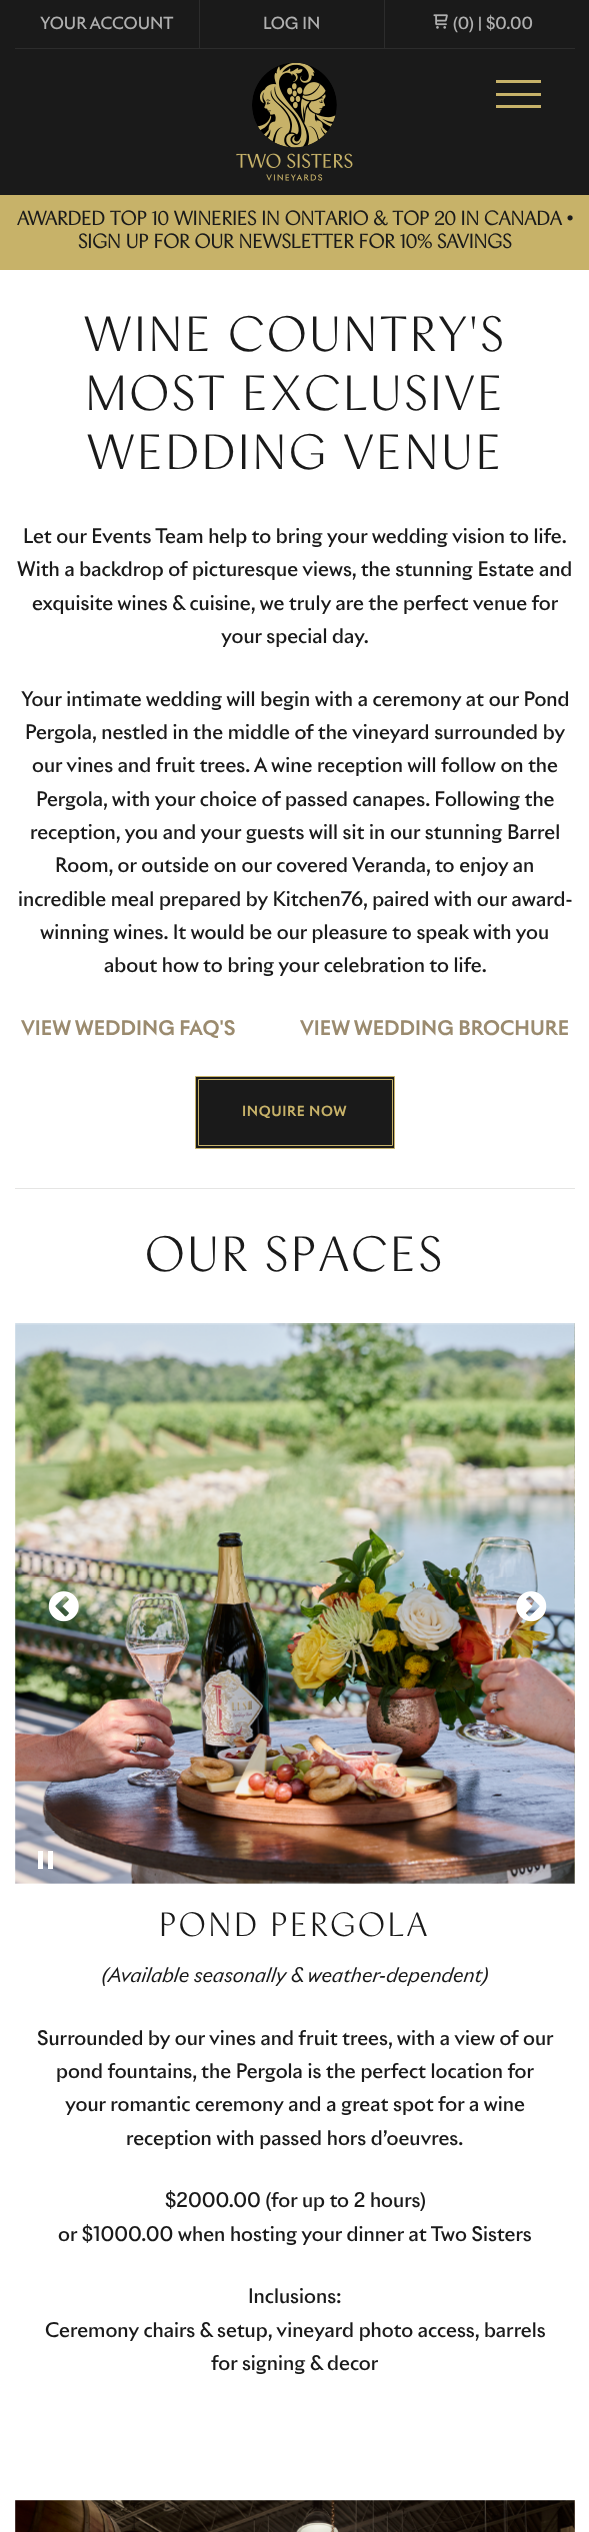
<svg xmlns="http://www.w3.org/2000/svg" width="589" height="2532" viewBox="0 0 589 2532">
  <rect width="100%" height="100%" fill="#fff"/>
  <path d="M0 0h589v195H0z" fill="#1a1a1a"/>
  <path d="M15 48h560v1H15z" fill="#2c2c2c"/>
  <path d="M199 0h1v49H199z" fill="#2c2c2c"/>
  <path d="M384 0h1v49H384z" fill="#2c2c2c"/>
  <image x="433" y="14" width="15" height="15" href="img/1.png"/>
  <image x="236" y="63" width="117" height="118" href="img/2.png"/>
  <path d="M496 93h45v3H496z" fill="#c7b269"/>
  <path d="M496 80h45v3H496z" fill="#c7b269"/>
  <path d="M496 105h45v3H496z" fill="#c7b269"/>
  <path d="M0 195h589v75H0z" fill="#c7b269"/>
  <path d="M195.5 1076.5h199v72H195.5z" fill="#1a1a1a" stroke="#c7b269"/>
  <path d="M198.5 1079.5h194v66H198.5z" fill="none" stroke="#c7b269"/>
  <path d="M15 1188h560v1H15z" fill="#e5e5e4"/>
  <image x="15" y="1323" width="560" height="561" href="img/3.png"/>
  <image x="574" y="1323" width="1" height="561" href="img/4.png"/>
  <image x="48" y="1591" width="31" height="31" href="img/5.png"/>
  <image x="516" y="1591" width="31" height="31" href="img/6.png"/>
  <path d="M38 1851h5v18H38z" fill="#fff"/>
  <path d="M48 1851h5v18H48z" fill="#fff"/>
  <image x="15" y="2500" width="560" height="32" href="img/7.png"/>
  <image x="574" y="2500" width="1" height="32" href="img/8.png"/>
  <g font-family="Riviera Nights" font-size="16.25" font-weight="500" fill="#afafaf">
    <text x="40" y="29">YOUR ACCOUNT</text>
    <text x="263" y="29">LOG IN</text>
    <text x="453" y="29">(0) | $0.00</text>
  </g>
  <g font-family="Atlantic" font-size="19.6" font-weight="bold" fill="#1a1a1a">
    <text x="17" y="225">AWARDED TOP 10 WINERIES IN ONTARIO &amp; TOP 20 IN CANADA •</text>
    <text x="78" y="248">SIGN UP FOR OUR NEWSLETTER FOR 10% SAVINGS</text>
  </g>
  <g font-family="Atlantic" font-size="49" letter-spacing="2.5" fill="#1a1a1a">
    <text x="84" y="351">WINE COUNTRY'S</text>
    <text x="85" y="410">MOST EXCLUSIVE</text>
    <text x="87" y="469">WEDDING VENUE</text>
  </g>
  <g font-family="Riviera Nights" font-size="19.6" font-weight="500" fill="#1a1a1a">
    <text x="23" y="543">Let our Events Team help to bring your wedding vision to life.</text>
    <text x="17" y="576">With a backdrop of picturesque views, the stunning Estate and</text>
    <text x="32" y="610">exquisite wines &amp; cuisine, we truly are the perfect venue for</text>
    <text x="221" y="643">your special day.</text>
    <text x="21" y="706">Your intimate wedding will begin with a ceremony at our Pond</text>
    <text x="25" y="739">Pergola, nestled in the middle of the vineyard surrounded by</text>
    <text x="32" y="772">our vines and fruit trees. A wine reception will follow on the</text>
    <text x="36" y="806">Pergola, with your choice of passed canapes. Following the</text>
    <text x="30" y="839">reception, you and your guests will sit in our stunning Barrel</text>
    <text x="55" y="872">Room, or outside on our covered Veranda, to enjoy an</text>
    <text x="18" y="906">incredible meal prepared by Kitchen76, paired with our award-</text>
    <text x="40" y="939">winning wines. It would be our pleasure to speak with you</text>
    <text x="104" y="972">about how to bring your celebration to life.</text>
  </g>
  <g font-family="Riviera Nights" font-size="19.6" font-weight="bold" fill="#9b8b6f">
    <text x="21" y="1035">VIEW WEDDING FAQ'S</text>
    <text x="300" y="1035">VIEW WEDDING BROCHURE</text>
  </g>
  <text x="242" y="1116" font-family="Riviera Nights" font-size="13.75" font-weight="bold" letter-spacing="0.6" fill="#c7b269">INQUIRE NOW</text>
  <text x="145" y="1271" font-family="Atlantic" font-size="49" letter-spacing="2.5" fill="#1a1a1a">OUR SPACES</text>
  <text x="159" y="1936" font-family="Atlantic" font-size="33.25" letter-spacing="2.5" fill="#1a1a1a">POND PERGOLA</text>
  <text x="102" y="1982" font-family="Riviera Nights" font-size="19.6" font-style="italic" fill="#1a1a1a">(Available seasonally &amp; weather-dependent)</text>
  <g font-family="Riviera Nights" font-size="19.6" font-weight="500" fill="#1a1a1a">
    <text x="37" y="2045">Surrounded by our vines and fruit trees, with a view of our</text>
    <text x="56" y="2078">pond fountains, the Pergola is the perfect location for</text>
    <text x="65" y="2111">your romantic ceremony and a great spot for a wine</text>
    <text x="126" y="2145">reception with passed hors d’oeuvres.</text>
    <text x="165" y="2207">$2000.00 (for up to 2 hours)</text>
    <text x="58" y="2241">or $1000.00 when hosting your dinner at Two Sisters</text>
    <text x="248" y="2303">Inclusions:</text>
    <text x="45" y="2337">Ceremony chairs &amp; setup, vineyard photo access, barrels</text>
    <text x="211" y="2370">for signing &amp; decor</text>
  </g>
</svg>
